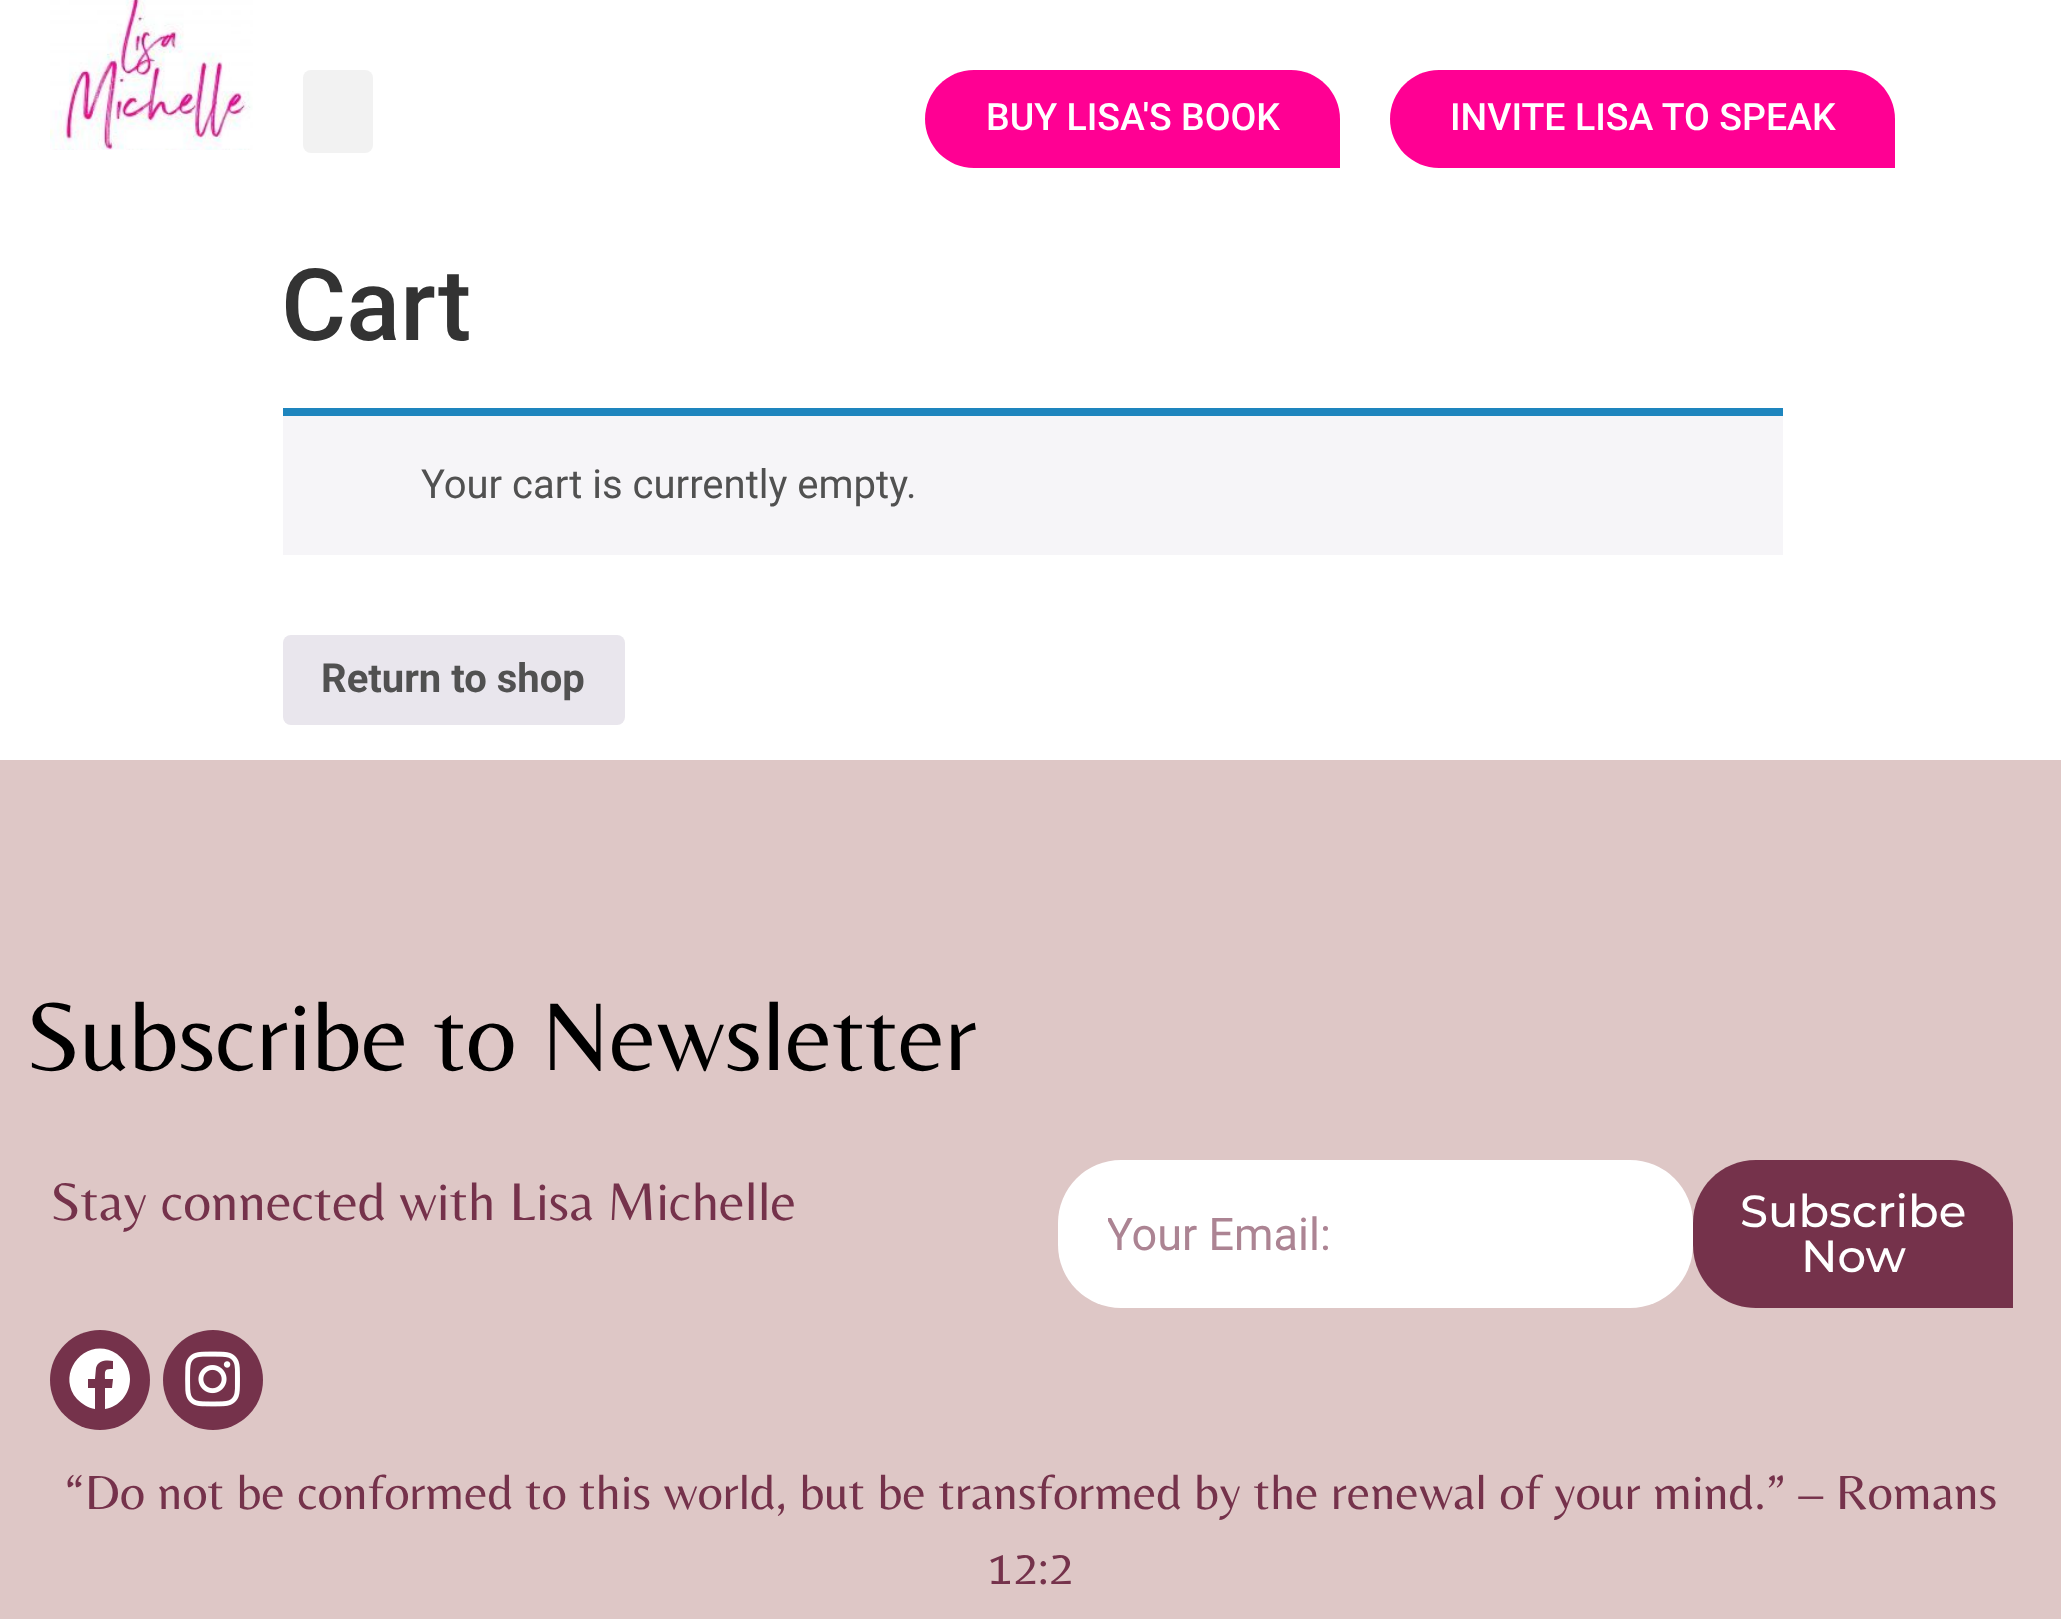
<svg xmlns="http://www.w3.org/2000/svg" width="2061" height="1619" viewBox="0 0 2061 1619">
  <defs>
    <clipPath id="clip1"><path d="M1108 1208h535v52H1108z"/></clipPath>
  </defs>
  <rect width="100%" height="100%" fill="#fff"/>
  <image x="50" y="0" width="203" height="150" href="img/1.png"/>
  <rect x="303" y="70" width="70" height="83" rx="8" fill="#f2f2f2"/>
  <path d="M974 70H1291C1318 70 1340 92 1340 119V168H974C947 168 925 146 925 119C925 92 947 70 974 70Z" fill="#ff0093"/>
  <path d="M1439 70H1846C1873 70 1895 92 1895 119V168H1439C1412 168 1390 146 1390 119C1390 92 1412 70 1439 70Z" fill="#ff0093"/>
  <path d="M283 416h1500v139H283z" fill="#f6f5f8"/>
  <path d="M283 408h1500v8H283z" fill="#1e85be"/>
  <rect x="283" y="635" width="342" height="90" rx="8" fill="#e9e6ed"/>
  <path d="M0 760h2061v859H0z" fill="#dec7c6"/>
  <circle cx="100" cy="1380" r="50" fill="#75324b"/>
  <path d="M130 1379C130 1394 119 1407 105 1409V1388H112L113 1379H105C105 1370 104 1369 113 1369V1361C107 1360 98 1360 96 1368L95 1379H88V1388H95V1409C88 1408 82 1404 77 1399C54 1372 88 1334 117 1354C125 1360 130 1369 130 1379Z" fill="#fff"/>
  <circle cx="213" cy="1380" r="50" fill="#75324b"/>
  <image x="185" y="1351" width="55" height="56" href="img/2.png"/>
  <rect x="1058" y="1160" width="635" height="148" rx="63" fill="#fff"/>
  <path d="M1756 1160H1950C1985 1160 2013 1188 2013 1223V1308H1756C1721 1308 1693 1280 1693 1245V1223C1693 1188 1721 1160 1756 1160Z" fill="#75324b"/>
  <g font-family="Roboto" font-size="37.5" font-weight="500" fill="#fff">
    <text x="986" y="130">BUY LISA'S BOOK</text>
    <text x="1450" y="130">INVITE LISA TO SPEAK</text>
  </g>
  <text x="281" y="340" font-family="Roboto" font-size="100" font-weight="500" fill="#333">Cart</text>
  <text x="421" y="498" font-family="Roboto" font-size="40" fill="#515151">Your cart is currently empty.</text>
  <text x="321" y="692" font-family="Roboto" font-size="40" font-weight="bold" fill="#515151">Return to shop</text>
  <text x="25" y="1070" font-family="Belleza" font-size="100" fill="#000">Subscribe to Newsletter</text>
  <text x="50" y="1220" font-family="Belleza" font-size="55" fill="#75324b">Stay connected with Lisa Michelle</text>
  <g clip-path="url(#clip1)">
    <text x="1106" y="1250" font-family="Roboto" font-size="45" fill="#ac8493">Your Email:</text>
  </g>
  <g font-family="Montserrat" font-size="45" font-weight="500" fill="#fff">
    <text x="1740" y="1227">Subscribe</text>
    <text x="1801" y="1272">Now</text>
  </g>
  <g font-family="Belleza" font-size="50" fill="#75324b">
    <text x="65" y="1509">“Do not be conformed to this world, but be transformed by the renewal of your mind.” – Romans</text>
    <text x="988" y="1584">12:2</text>
  </g>
</svg>
